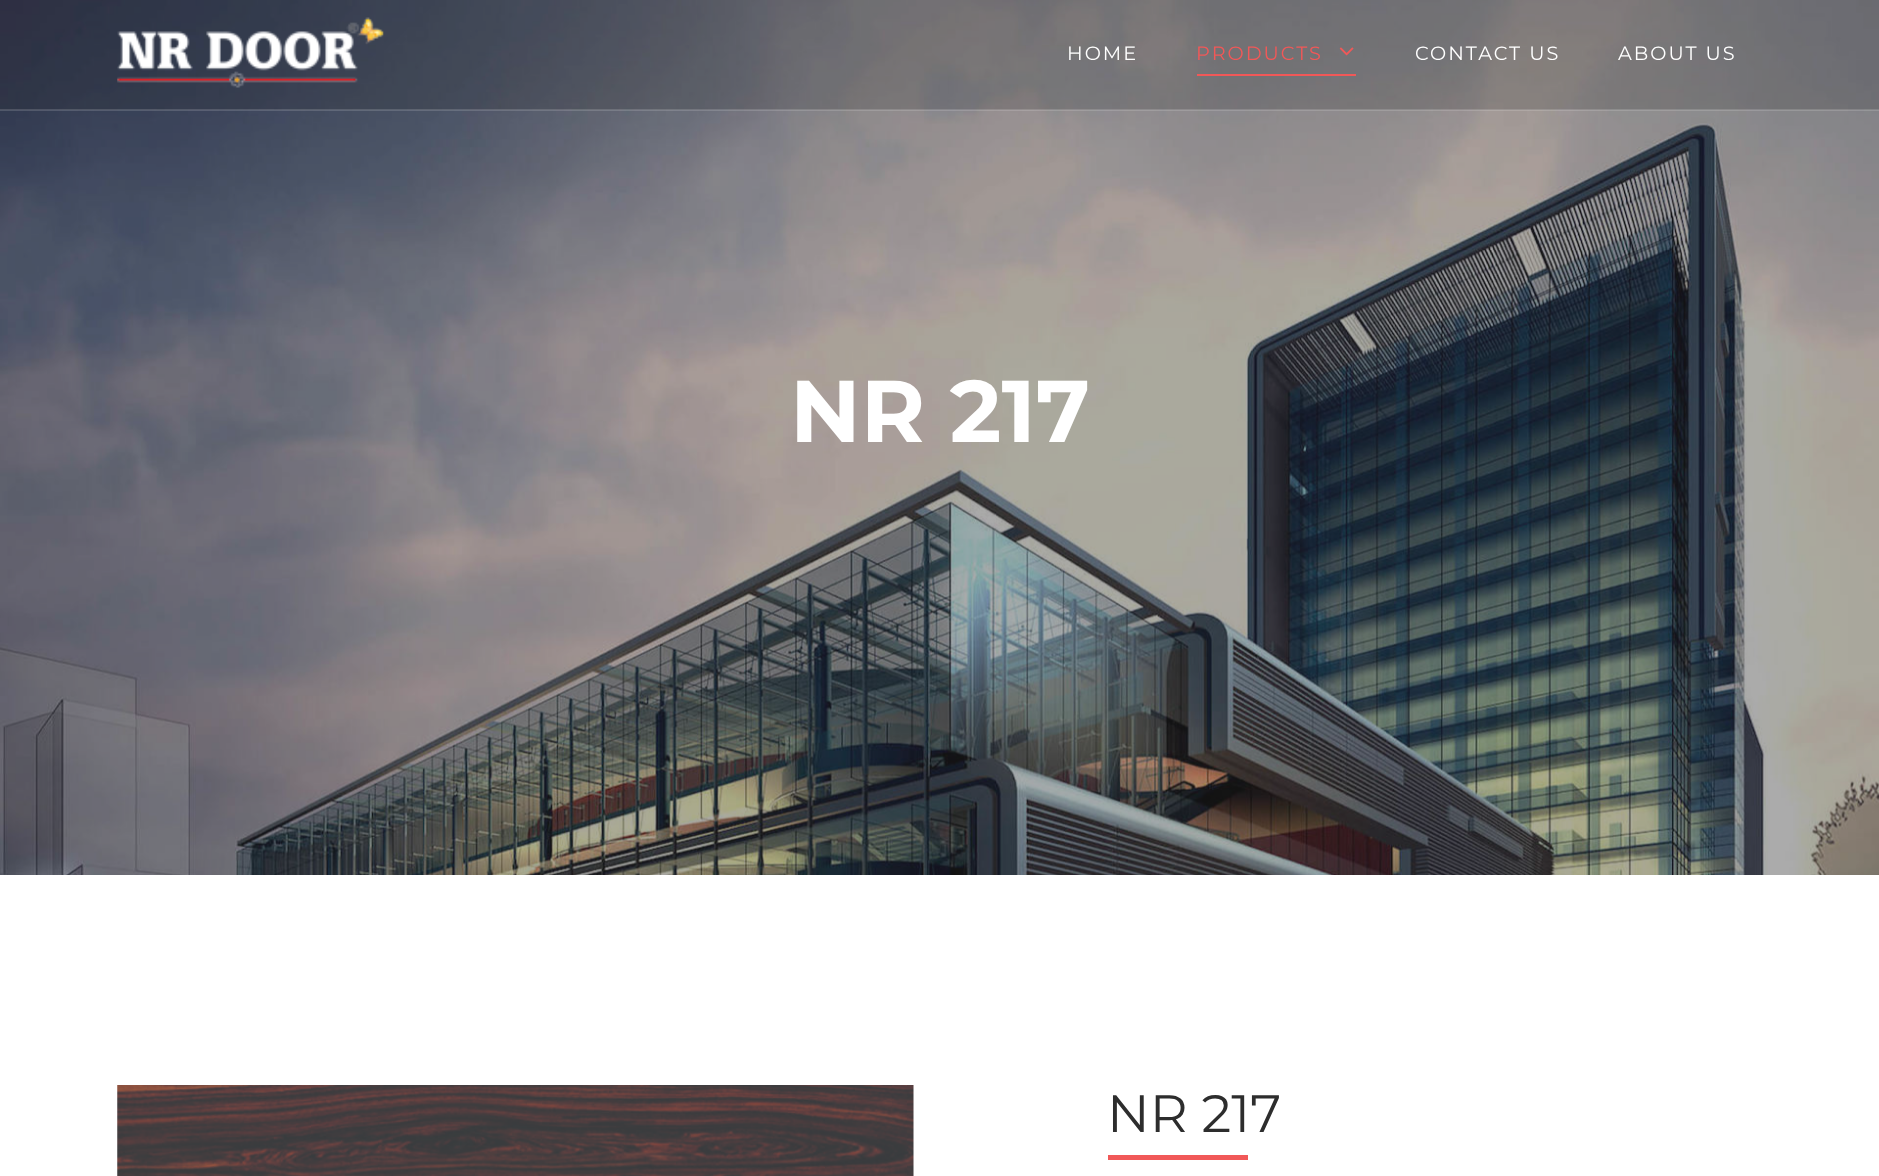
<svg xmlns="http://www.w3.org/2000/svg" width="1879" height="1176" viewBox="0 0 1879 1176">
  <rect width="100%" height="100%" fill="#fff"/>
  <image x="0" y="0" width="1879" height="875" href="img/3.png"/>
  <path d="M0 0h1879v110H0z" fill="#22222533"/>
  <path d="M0 109h1879v2H0z" fill="#ffffff26"/>
  <image x="117" y="17" width="267" height="71" href="img/1.png"/>
  <image x="1339" y="47" width="15" height="9" href="img/2.png"/>
  <path d="M1197 74h159v2H1197z" fill="#f15858"/>
  <image x="117" y="1085" width="797" height="91" href="img/4.png"/>
  <path d="M1108 1155h140v5H1108z" fill="#f15858"/>
  <text x="1067" y="60" font-family="Montserrat" font-size="19.25" letter-spacing="2" fill="#fff">HOME</text>
  <text x="1196" y="60" font-family="Montserrat" font-size="19.25" letter-spacing="2" fill="#f15858">PRODUCTS</text>
  <g font-family="Montserrat" font-size="19.25" letter-spacing="2" fill="#fff">
    <text x="1415" y="60">CONTACT US</text>
    <text x="1618" y="60">ABOUT US</text>
  </g>
  <text x="790" y="442" font-family="Montserrat" font-size="87.5" font-weight="bold" fill="#fff">NR 217</text>
  <text x="1107" y="1132" font-family="Montserrat" font-size="52.5" fill="#2d2d2d">NR 217</text>
</svg>
